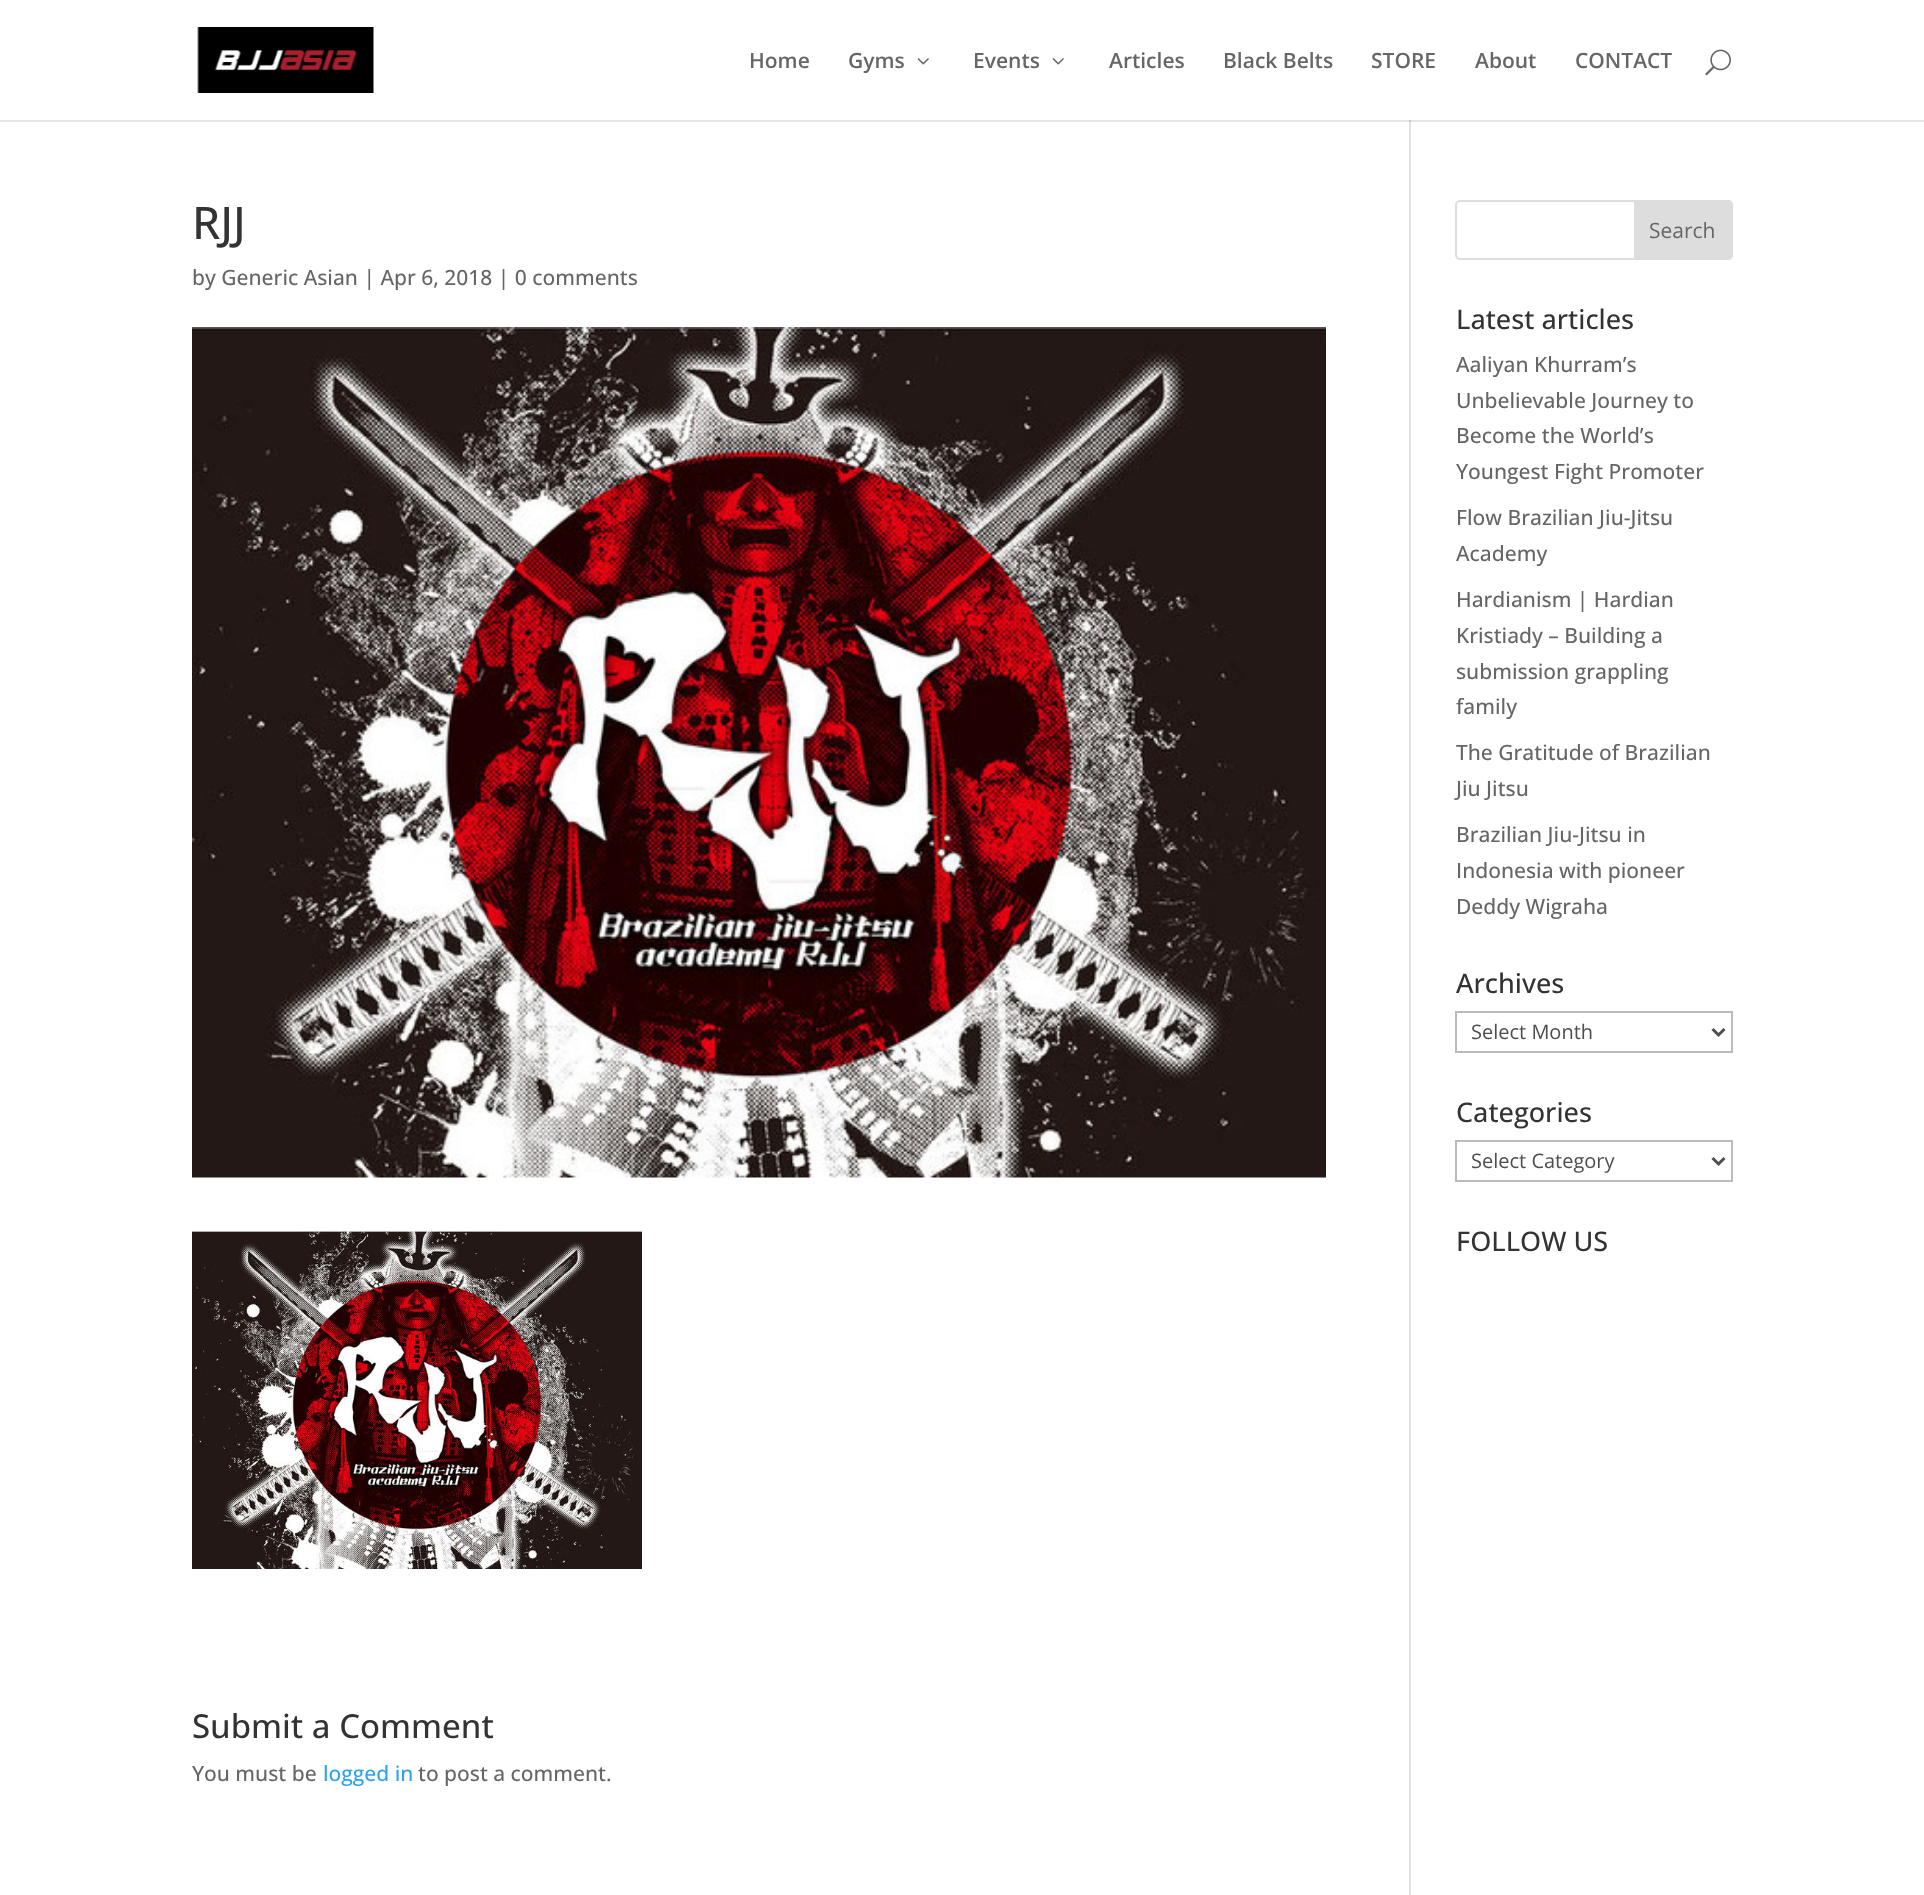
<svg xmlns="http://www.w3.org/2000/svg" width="1924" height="1895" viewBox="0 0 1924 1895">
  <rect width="100%" height="100%" fill="#fff"/>
  <path d="M1409 120h2v1775H1409z" fill="#e2e2e2"/>
  <path d="M0 120V122H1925V2H1924V120Z" fill="#0000001a"/>
  <image x="197" y="27" width="177" height="66" href="img/1.png"/>
  <image x="917" y="58" width="12" height="7" href="img/2.png"/>
  <image x="1052" y="58" width="12" height="7" href="img/2.png"/>
  <image x="1705" y="49" width="26" height="27" href="img/3.png"/>
  <image x="192" y="327" width="1134" height="851" href="img/4.png"/>
  <image x="192" y="1231" width="450" height="338" href="img/5.png"/>
  <rect x="1456" y="201" width="276" height="58" rx="4" fill="none" stroke="#ddd" stroke-width="2"/>
  <path d="M1635 201H1728C1730 201 1732 203 1732 205V255C1732 257 1730 259 1728 259H1635Z" fill="#ddd" stroke="#ddd" stroke-width="2"/>
  <path d="M1456 1012h276v40H1456z" fill="none" stroke="#bbb" stroke-width="2"/>
  <path d="M1712.5 1029L1718.5 1035L1724.5 1029" fill="none" stroke="#4e4e4e" stroke-width="3"/>
  <path d="M1456 1141h276v40H1456z" fill="none" stroke="#bbb" stroke-width="2"/>
  <path d="M1712.5 1158L1718.5 1164L1724.5 1158" fill="none" stroke="#4e4e4e" stroke-width="3"/>
  <g font-family="Open Sans" font-size="21" font-weight="600" fill="#666">
    <text x="749" y="68">Home</text>
    <text x="848" y="68">Gyms</text>
    <text x="973" y="68">Events</text>
    <text x="1109" y="68">Articles</text>
    <text x="1223" y="68">Black Belts</text>
    <text x="1371" y="68">STORE</text>
    <text x="1475" y="68">About</text>
    <text x="1575" y="68">CONTACT</text>
  </g>
  <text x="192" y="239" font-family="Open Sans" font-size="45" font-weight="500" fill="#333">RJJ</text>
  <text x="192" y="285" font-family="Open Sans" font-size="21" font-weight="500" fill="#666">by Generic Asian | Apr 6, 2018 | 0 comments</text>
  <text x="192" y="1738" font-family="Open Sans" font-size="33" font-weight="500" fill="#333">Submit a Comment</text>
  <text x="192" y="1781" font-family="Open Sans" font-size="21" font-weight="500" fill="#666">You must be</text>
  <text x="323" y="1781" font-family="Open Sans" font-size="21" font-weight="500" fill="#2ea3f2">logged in</text>
  <text x="418" y="1781" font-family="Open Sans" font-size="21" font-weight="500" fill="#666">to post a comment.</text>
  <text x="1649" y="238" font-family="Open Sans" font-size="21" fill="#666">Search</text>
  <text x="1456" y="329" font-family="Open Sans" font-size="27" font-weight="500" fill="#333">Latest articles</text>
  <g font-family="Open Sans" font-size="21" font-weight="500" fill="#666">
    <text x="1456" y="372">Aaliyan Khurram’s</text>
    <text x="1456" y="408">Unbelievable Journey to</text>
    <text x="1456" y="443">Become the World’s</text>
    <text x="1456" y="479">Youngest Fight Promoter</text>
    <text x="1456" y="525">Flow Brazilian Jiu-Jitsu</text>
    <text x="1456" y="561">Academy</text>
    <text x="1456" y="607">Hardianism | Hardian</text>
    <text x="1456" y="643">Kristiady – Building a</text>
    <text x="1456" y="679">submission grappling</text>
    <text x="1456" y="714">family</text>
    <text x="1456" y="760">The Gratitude of Brazilian</text>
    <text x="1456" y="796">Jiu Jitsu</text>
    <text x="1456" y="842">Brazilian Jiu-Jitsu in</text>
    <text x="1456" y="878">Indonesia with pioneer</text>
    <text x="1456" y="914">Deddy Wigraha</text>
  </g>
  <text x="1456" y="993" font-family="Open Sans" font-size="27" font-weight="500" fill="#333">Archives</text>
  <text x="1471" y="1039" font-family="Open Sans" font-size="20" fill="#4e4e4e">Select Month</text>
  <text x="1456" y="1122" font-family="Open Sans" font-size="27" font-weight="500" fill="#333">Categories</text>
  <text x="1471" y="1168" font-family="Open Sans" font-size="20" fill="#4e4e4e">Select Category</text>
  <text x="1456" y="1251" font-family="Open Sans" font-size="27" font-weight="500" fill="#333">FOLLOW US</text>
</svg>
